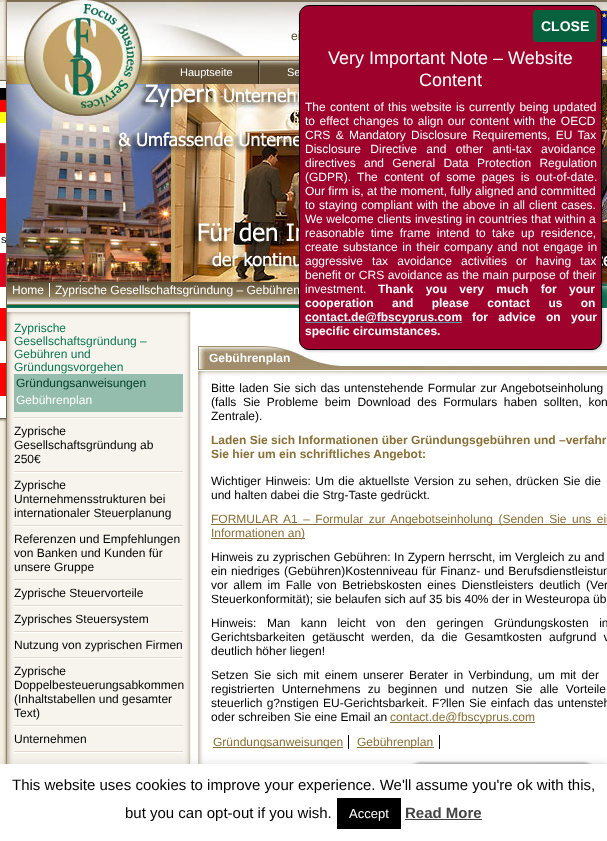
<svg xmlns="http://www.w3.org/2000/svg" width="607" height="841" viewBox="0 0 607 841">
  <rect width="100%" height="100%" fill="#f5efe3"/>
  <image x="0" y="0" width="6" height="4" href="img/1.png"/>
  <image x="0" y="4" width="6" height="76" href="img/2.png"/>
  <image x="3" y="0" width="604" height="764" href="img/3.png"/>
  <path d="M-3 81h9v339H-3z" fill="#00000080" filter="blur(1px)"/>
  <image x="7" y="0" width="600" height="84" href="img/4.png"/>
  <image x="600" y="10" width="7" height="37" href="img/5.png"/>
  <image x="7" y="84" width="600" height="198" href="img/11.png"/>
  <image x="7" y="282" width="600" height="26" href="img/12.png"/>
  <image x="198" y="346" width="409" height="25" href="img/17.png"/>
  <image x="209" y="346" width="131" height="20" href="img/18.png"/>
  <rect x="300" y="6" width="303" height="345" rx="10" fill="#0202023b" filter="blur(1.5px)"/>
  <image x="258" y="60" width="2" height="24" href="img/6.png"/>
  <path d="M-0.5 80.5h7v338H-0.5z" fill="#fff" stroke="#736548"/>
  <image x="0" y="88" width="6" height="35" href="img/7.png"/>
  <image x="0" y="143" width="6" height="34" href="img/8.png"/>
  <path d="M0 198h6v35H0z" fill="#fe0000"/>
  <image x="0" y="253" width="6" height="34" href="img/9.png"/>
  <image x="0" y="308" width="6" height="33" href="img/10.png"/>
  <path d="M0 363h6v33H0z" fill="#fe0000"/>
  <path d="M49 283h1v14H49z" fill="#fff"/>
  <image x="7" y="312" width="183" height="10" href="img/13.png"/>
  <image x="7" y="322" width="183" height="442" href="img/14.png"/>
  <image x="14" y="417" width="169" height="2" href="img/15.png"/>
  <path d="M14 374h169v38H14z" fill="#95bdad"/>
  <image x="14" y="471" width="169" height="2" href="img/15.png"/>
  <image x="14" y="525" width="169" height="2" href="img/15.png"/>
  <image x="14" y="579" width="169" height="2" href="img/15.png"/>
  <image x="14" y="605" width="169" height="2" href="img/15.png"/>
  <image x="14" y="631" width="169" height="2" href="img/15.png"/>
  <image x="14" y="657" width="169" height="2" href="img/15.png"/>
  <image x="14" y="725" width="169" height="2" href="img/15.png"/>
  <image x="14" y="751" width="169" height="2" href="img/15.png"/>
  <image x="198" y="379" width="5" height="385" href="img/16.png"/>
  <image x="198" y="371" width="409" height="8" href="img/19.png"/>
  <path d="M211 524h396v1H211z" fill="#887037"/>
  <path d="M211 538h94v1H211z" fill="#887037"/>
  <path d="M390 722h145v1H390z" fill="#887037"/>
  <path d="M348 735h1v14H348z" fill="#000"/>
  <path d="M213 747h130v1H213z" fill="#887037"/>
  <path d="M439 735h1v14H439z" fill="#000"/>
  <path d="M357 747h77v1H357z" fill="#887037"/>
  <image x="409" y="761" width="184" height="3" href="img/20.png"/>
  <rect x="537" y="767" width="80" height="60" rx="2" fill="#808080" filter="blur(2.5px)"/>
  <path d="M0 763h607v77H0z" fill="#acabab4d" filter="blur(5px)"/>
  <path d="M0 764h607v77H0z" fill="#fff"/>
  <path d="M337 798h64v31H337z" fill="#000"/>
  <path d="M405 819h77v1H405z" fill="#444"/>
  <text x="291" y="40" font-family="Liberation Sans" font-size="12" fill="#594827">ei</text>
  <g font-family="Liberation Sans" font-size="11" fill="#fff">
    <text x="180" y="76">Hauptseite</text>
    <text x="287" y="76">Se</text>
    <text x="600" y="75">e</text>
  </g>
  <text x="1" y="243" font-family="Liberation Sans" font-size="11" fill="#000">s</text>
  <g font-family="Liberation Sans" font-size="12" fill="#fff">
    <text x="12" y="294">Home</text>
    <text x="55" y="294">Zyprische Gesellschaftsgründung – Gebühren</text>
  </g>
  <rect x="299.5" y="5.5" width="302" height="344" rx="9.5" fill="#9e012b" stroke="#000"/>
  <rect x="533" y="10" width="64" height="32" rx="4" fill="#06613c"/>
  <text x="541" y="31" font-family="Liberation Sans" font-size="14" font-weight="bold" fill="#fff">CLOSE</text>
  <g font-family="Liberation Sans" font-size="12" font-weight="bold" fill="#fff">
    <text x="305" y="335">specific circumstances.</text>
    <text x="472" y="321" word-spacing="7">for advice on your</text>
  </g>
  <path d="M305 322h157v1H305z" fill="#589aad"/>
  <g font-family="Liberation Sans" font-size="12" font-weight="bold" fill="#fff">
    <text x="305" y="321">contact.de@fbscyprus.com</text>
    <text x="305" y="307" word-spacing="15">cooperation and please contact us on</text>
    <text x="378" y="293" word-spacing="9">Thank you very much for your</text>
  </g>
  <g font-family="Liberation Sans" font-size="12" fill="#fff">
    <text x="305" y="293">investment.</text>
    <text x="305" y="279" word-spacing="0.25">benefit or CRS avoidance as the main purpose of their</text>
    <text x="305" y="265" word-spacing="5.75">aggressive tax avoidance activities or having tax</text>
    <text x="305" y="251" word-spacing="1.25">create substance in their company and not engage in</text>
    <text x="305" y="237" word-spacing="3">reasonable time frame intend to take up residence,</text>
    <text x="305" y="223" word-spacing="0.25">We welcome clients investing in countries that within a</text>
    <text x="305" y="209" word-spacing="0.75">to staying compliant with the above in all client cases.</text>
    <text x="305" y="195">Our firm is, at the moment, fully aligned and committed</text>
    <text x="305" y="181" word-spacing="3">(GDPR). The content of some pages is out-of-date.</text>
    <text x="305" y="167" word-spacing="5">directives and General Data Protection Regulation</text>
    <text x="305" y="153" word-spacing="6">Disclosure Directive and other anti-tax avoidance</text>
    <text x="305" y="139" word-spacing="2">CRS &amp; Mandatory Disclosure Requirements, EU Tax</text>
    <text x="305" y="125" word-spacing="1.25">to effect changes to align our content with the OECD</text>
    <text x="305" y="111" word-spacing="1">The content of this website is currently being updated</text>
  </g>
  <g font-family="Liberation Sans" font-size="18" fill="#fff">
    <text x="419" y="86">Content</text>
    <text x="328" y="64">Very Important Note – Website</text>
  </g>
  <g font-family="Liberation Sans" font-size="12" fill="#097554">
    <text x="14" y="332">Zyprische</text>
    <text x="14" y="345">Gesellschaftsgründung –</text>
    <text x="14" y="358">Gebühren und</text>
    <text x="14" y="371">Gründungsvorgehen</text>
  </g>
  <text x="16" y="387" font-family="Liberation Sans" font-size="12" fill="#02422a">Gründungsanweisungen</text>
  <text x="16" y="404" font-family="Liberation Sans" font-size="12" fill="#fff">Gebührenplan</text>
  <g font-family="Liberation Sans" font-size="12" fill="#000">
    <text x="14" y="435">Zyprische</text>
    <text x="14" y="449">Gesellschaftsgründung ab</text>
    <text x="14" y="463">250€</text>
    <text x="14" y="489">Zyprische</text>
    <text x="14" y="503">Unternehmensstrukturen bei</text>
    <text x="14" y="517">internationaler Steuerplanung</text>
    <text x="14" y="543">Referenzen und Empfehlungen</text>
    <text x="14" y="557">von Banken und Kunden für</text>
    <text x="14" y="571">unsere Gruppe</text>
    <text x="14" y="597">Zyprische Steuervorteile</text>
    <text x="14" y="623">Zyprisches Steuersystem</text>
    <text x="14" y="649">Nutzung von zyprischen Firmen</text>
    <text x="14" y="675">Zyprische</text>
    <text x="14" y="689">Doppelbesteuerungsabkommen</text>
    <text x="14" y="703">(Inhaltstabellen und gesamter</text>
    <text x="14" y="717">Text)</text>
    <text x="14" y="743">Unternehmen</text>
  </g>
  <text x="209" y="362" font-family="Liberation Sans" font-size="12" font-weight="bold" fill="#fff">Gebührenplan</text>
  <g font-family="Liberation Sans" font-size="12" fill="#000">
    <text x="211" y="392" word-spacing="1">Bitte laden Sie sich das untenstehende Formular zur Angebotseinholung</text>
    <text x="211" y="406" word-spacing="3.25">(falls Sie Probleme beim Download des Formulars haben sollten, kon</text>
    <text x="211" y="420">Zentrale).</text>
  </g>
  <g font-family="Liberation Sans" font-size="12" font-weight="bold" fill="#887037">
    <text x="211" y="444">Laden Sie sich Informationen über Gründungsgebühren und –verfahr</text>
    <text x="211" y="458">Sie hier um ein schriftliches Angebot:</text>
  </g>
  <g font-family="Liberation Sans" font-size="12" fill="#000">
    <text x="211" y="485" word-spacing="1.1">Wichtiger Hinweis: Um die aktuellste Version zu sehen, drücken Sie die</text>
    <text x="211" y="499">und halten dabei die Strg-Taste gedrückt.</text>
  </g>
  <g font-family="Liberation Sans" font-size="12" fill="#887037">
    <text x="211" y="523" word-spacing="2.1">FORMULAR A1 – Formular zur Angebotseinholung (Senden Sie uns ein</text>
    <text x="211" y="537">Informationen an)</text>
  </g>
  <g font-family="Liberation Sans" font-size="12" fill="#000">
    <text x="211" y="561" word-spacing="0.25">Hinweis zu zyprischen Gebühren: In Zypern herrscht, im Vergleich zu and</text>
    <text x="211" y="575" word-spacing="0.75">ein niedriges (Gebühren)Kostenniveau für Finanz- und Berufsdienstleistun</text>
    <text x="211" y="589" word-spacing="2.25">vor allem im Falle von Betriebskosten eines Dienstleisters deutlich (Ver</text>
    <text x="211" y="603">Steuerkonformität); sie belaufen sich auf 35 bis 40% der in Westeuropa üb</text>
    <text x="211" y="627" word-spacing="7.25">Hinweis: Man kann leicht von den geringen Gründungskosten in</text>
    <text x="211" y="641" word-spacing="3.75">Gerichtsbarkeiten getäuscht werden, da die Gesamtkosten aufgrund v</text>
    <text x="211" y="655">deutlich höher liegen!</text>
    <text x="211" y="679" word-spacing="2.1">Setzen Sie sich mit einem unserer Berater in Verbindung, um mit der</text>
    <text x="211" y="693" word-spacing="4">registrierten Unternehmens zu beginnen und nutzen Sie alle Vorteile</text>
    <text x="211" y="707" word-spacing="1">steuerlich g?nstigen EU-Gerichtsbarkeit. F?llen Sie einfach das untensteh</text>
    <text x="211" y="721">oder schreiben Sie eine Email an</text>
  </g>
  <g font-family="Liberation Sans" font-size="12" fill="#887037">
    <text x="390" y="721">contact.de@fbscyprus.com</text>
    <text x="213" y="746">Gründungsanweisungen</text>
    <text x="357" y="746">Gebührenplan</text>
  </g>
  <g font-family="Liberation Sans" font-size="15" fill="#000">
    <text x="12" y="790">This website uses cookies to improve your experience. We'll assume you're ok with this,</text>
    <text x="125" y="818">but you can opt-out if you wish.</text>
  </g>
  <text x="349" y="818" font-family="Liberation Sans" font-size="13" fill="#fff">Accept</text>
  <text x="405" y="818" font-family="Liberation Sans" font-size="15" font-weight="bold" fill="#444">Read More</text>
</svg>
